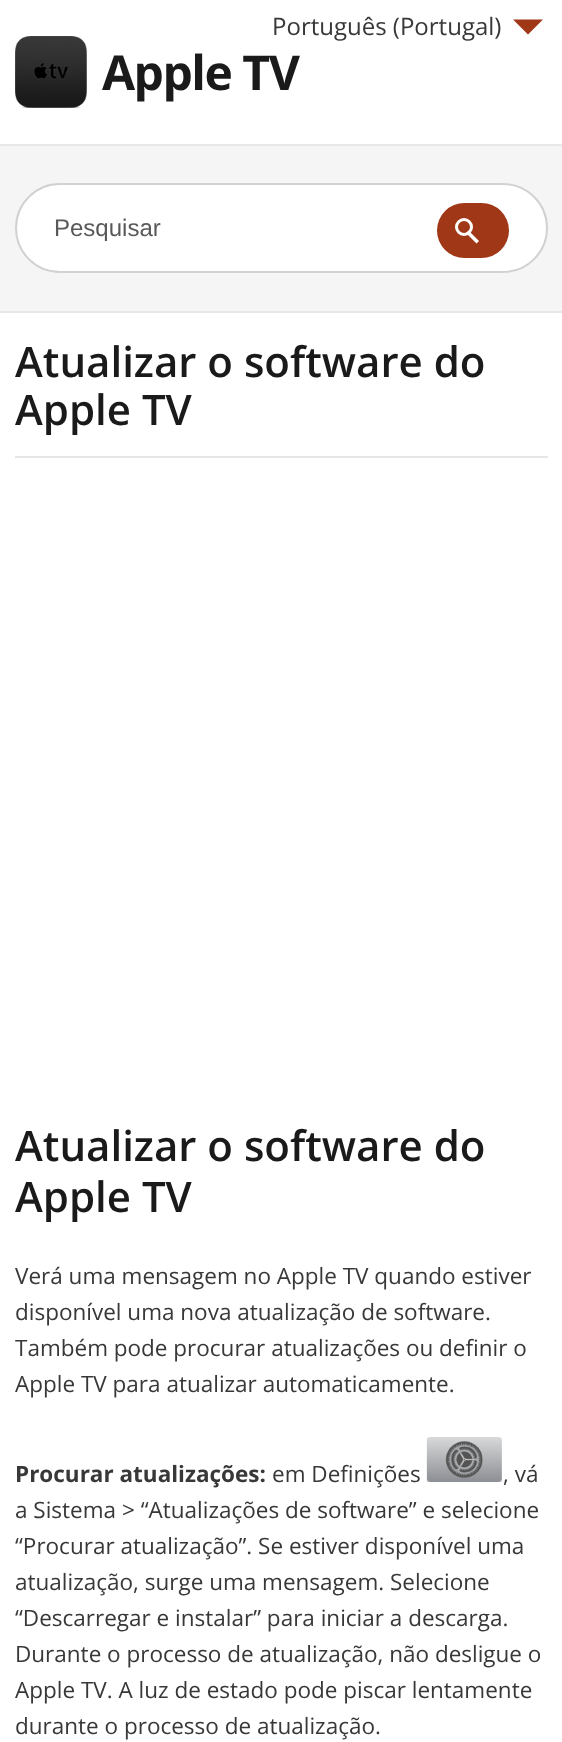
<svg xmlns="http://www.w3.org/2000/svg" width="562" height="1742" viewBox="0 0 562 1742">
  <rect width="100%" height="100%" fill="#fff"/>
  <path d="M513 19.5H543L528 34.5Z" fill="#a03717"/>
  <image x="15" y="36" width="72" height="72" href="img/1.png"/>
  <path d="M0 146h562v165H0z" fill="#f5f5f5"/>
  <path d="M0 144h562v2H0z" fill="#e8e8e8"/>
  <path d="M0 311h562v2H0z" fill="#e8e8e8"/>
  <rect x="16" y="184" width="531" height="88" rx="44" fill="#fff" stroke="#d1d1d1" stroke-width="2"/>
  <rect x="437" y="203" width="72" height="55" rx="27.5" fill="#a03717"/>
  <circle cx="464" cy="227" r="7.5" fill="none" stroke="#fff" stroke-width="3"/>
  <path d="M468.5 230.5L479 241L476.5 243.5L466 233Z" fill="#fff"/>
  <path d="M15 456h533v2H15z" fill="#e6e6e6"/>
  <image x="426" y="1437" width="76" height="45" href="img/2.png"/>
  <text x="272" y="35" font-family="Open Sans" font-size="24" fill="#383838">Português (Portugal)</text>
  <text x="102" y="90" font-family="Open Sans" font-size="48" font-weight="bold" letter-spacing="-1.5" fill="#1a1a1a">Apple TV</text>
  <text x="54" y="236" font-family="Liberation Sans" font-size="24" fill="#595959">Pesquisar</text>
  <g font-family="Open Sans" font-size="42" font-weight="600" fill="#1a1a1a">
    <text x="15" y="377">Atualizar o software do</text>
    <text x="15" y="425">Apple TV</text>
    <text x="15" y="1161">Atualizar o software do</text>
    <text x="15" y="1212">Apple TV</text>
  </g>
  <g font-family="Open Sans" font-size="22.5" fill="#383838">
    <text x="15" y="1284">Verá uma mensagem no Apple TV quando estiver</text>
    <text x="15" y="1320">disponível uma nova atualização de software.</text>
    <text x="15" y="1356">Também pode procurar atualizações ou definir o</text>
    <text x="15" y="1392">Apple TV para atualizar automaticamente.</text>
  </g>
  <text x="15" y="1482" font-family="Open Sans" font-size="22.5" font-weight="bold" fill="#383838">Procurar atualizações:</text>
  <g font-family="Open Sans" font-size="22.5" fill="#383838">
    <text x="272" y="1482">em Definições</text>
    <text x="503" y="1482">, vá</text>
    <text x="15" y="1518">a Sistema &gt; “Atualizações de software” e selecione</text>
    <text x="15" y="1554">“Procurar atualização”. Se estiver disponível uma</text>
    <text x="15" y="1590">atualização, surge uma mensagem. Selecione</text>
    <text x="15" y="1626">“Descarregar e instalar” para iniciar a descarga.</text>
    <text x="15" y="1662">Durante o processo de atualização, não desligue o</text>
    <text x="15" y="1698">Apple TV. A luz de estado pode piscar lentamente</text>
    <text x="15" y="1734">durante o processo de atualização.</text>
  </g>
</svg>
